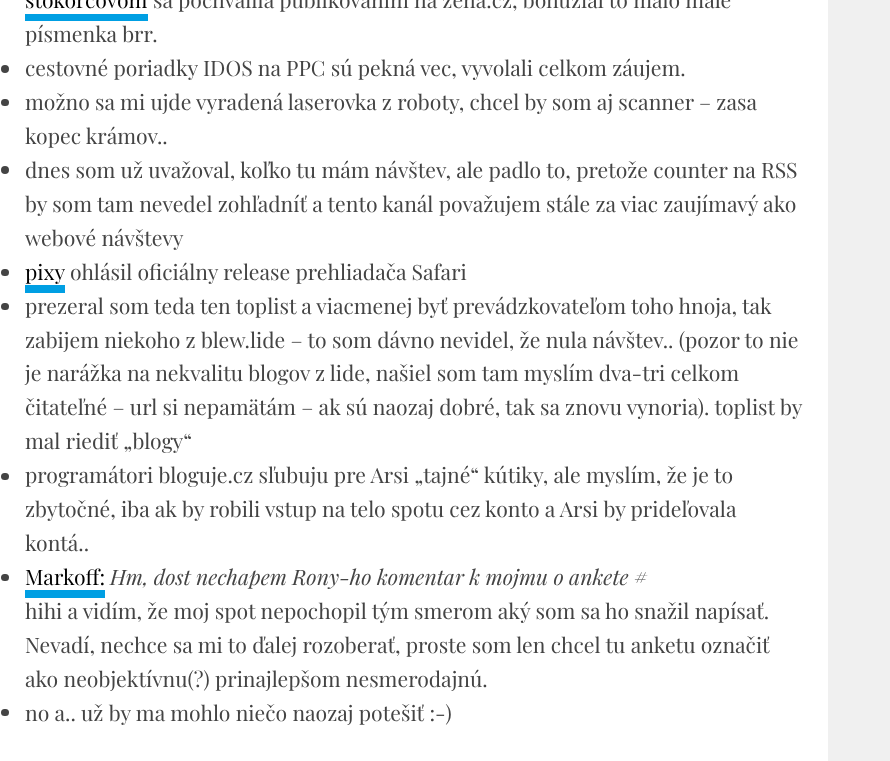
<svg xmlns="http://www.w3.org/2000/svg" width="890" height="761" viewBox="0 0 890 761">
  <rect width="100%" height="100%" fill="#fff"/>
  <path d="M25 14h123v7H25z" fill="#009fe3"/>
  <circle cx="5" cy="69" r="4" fill="#444"/>
  <rect x="1" y="99" width="8" height="7" rx="3.5" fill="#444"/>
  <circle cx="5" cy="170" r="4" fill="#444"/>
  <rect x="1" y="269" width="8" height="7" rx="3.5" fill="#444"/>
  <path d="M25 285h40v8H25z" fill="#009fe3"/>
  <rect x="1" y="303" width="8" height="7" rx="3.5" fill="#444"/>
  <rect x="1" y="473" width="8" height="7" rx="3.5" fill="#444"/>
  <rect x="1" y="574" width="8" height="7" rx="3.5" fill="#444"/>
  <path d="M25 590h80v8H25z" fill="#009fe3"/>
  <rect x="1" y="709" width="8" height="7" rx="3.5" fill="#444"/>
  <path d="M828 0h62v761H828z" fill="#f0f0f0"/>
  <text x="25" y="8" font-family="Playfair Display" font-size="21.2" fill="#000">stokorcovom</text>
  <g font-family="Playfair Display" font-size="21.2" fill="#444">
    <text x="153" y="8">sa pochválila publikovaním na zena.cz, bohužiaľ to malo malé</text>
    <text x="25" y="42">písmenka brr.</text>
    <text x="25" y="76">cestovné poriadky IDOS na PPC sú pekná vec, vyvolali celkom záujem.</text>
    <text x="25" y="110">možno sa mi ujde vyradená laserovka z roboty, chcel by som aj scanner – zasa</text>
    <text x="25" y="144">kopec krámov..</text>
    <text x="25" y="178">dnes som už uvažoval, koľko tu mám návštev, ale padlo to, pretože counter na RSS</text>
    <text x="25" y="212">by som tam nevedel zohľadníť a tento kanál považujem stále za viac zaujímavý ako</text>
    <text x="25" y="246">webové návštevy</text>
  </g>
  <text x="25" y="280" font-family="Playfair Display" font-size="21.2" fill="#000">pixy</text>
  <g font-family="Playfair Display" font-size="21.2" fill="#444">
    <text x="70" y="280">ohlásil oficiálny release prehliadača Safari</text>
    <text x="25" y="314">prezeral som teda ten toplist a viacmenej byť prevádzkovateľom toho hnoja, tak</text>
    <text x="25" y="348">zabijem niekoho z blew.lide – to som dávno nevidel, že nula návštev.. (pozor to nie</text>
    <text x="25" y="381">je narážka na nekvalitu blogov z lide, našiel som tam myslím dva-tri celkom</text>
    <text x="25" y="415">čitateľné – url si nepamätám – ak sú naozaj dobré, tak sa znovu vynoria). toplist by</text>
    <text x="25" y="449">mal riediť „blogy“</text>
    <text x="25" y="483">programátori bloguje.cz sľubuju pre Arsi „tajné“ kútiky, ale myslím, že je to</text>
    <text x="25" y="517">zbytočné, iba ak by robili vstup na telo spotu cez konto a Arsi by prideľovala</text>
    <text x="25" y="551">kontá..</text>
  </g>
  <text x="25" y="585" font-family="Playfair Display" font-size="21.2" fill="#000">Markoff:</text>
  <text x="110" y="585" font-family="Playfair Display" font-size="21.2" font-style="italic" fill="#444">Hm, dost nechapem Rony-ho komentar k mojmu o ankete #</text>
  <g font-family="Playfair Display" font-size="21.2" fill="#444">
    <text x="25" y="619">hihi a vidím, že moj spot nepochopil tým smerom aký som sa ho snažil napísať.</text>
    <text x="25" y="653">Nevadí, nechce sa mi to ďalej rozoberať, proste som len chcel tu anketu označiť</text>
    <text x="25" y="687">ako neobjektívnu(?) prinajlepšom nesmerodajnú.</text>
    <text x="25" y="721">no a.. už by ma mohlo niečo naozaj potešiť :-)</text>
  </g>
</svg>
